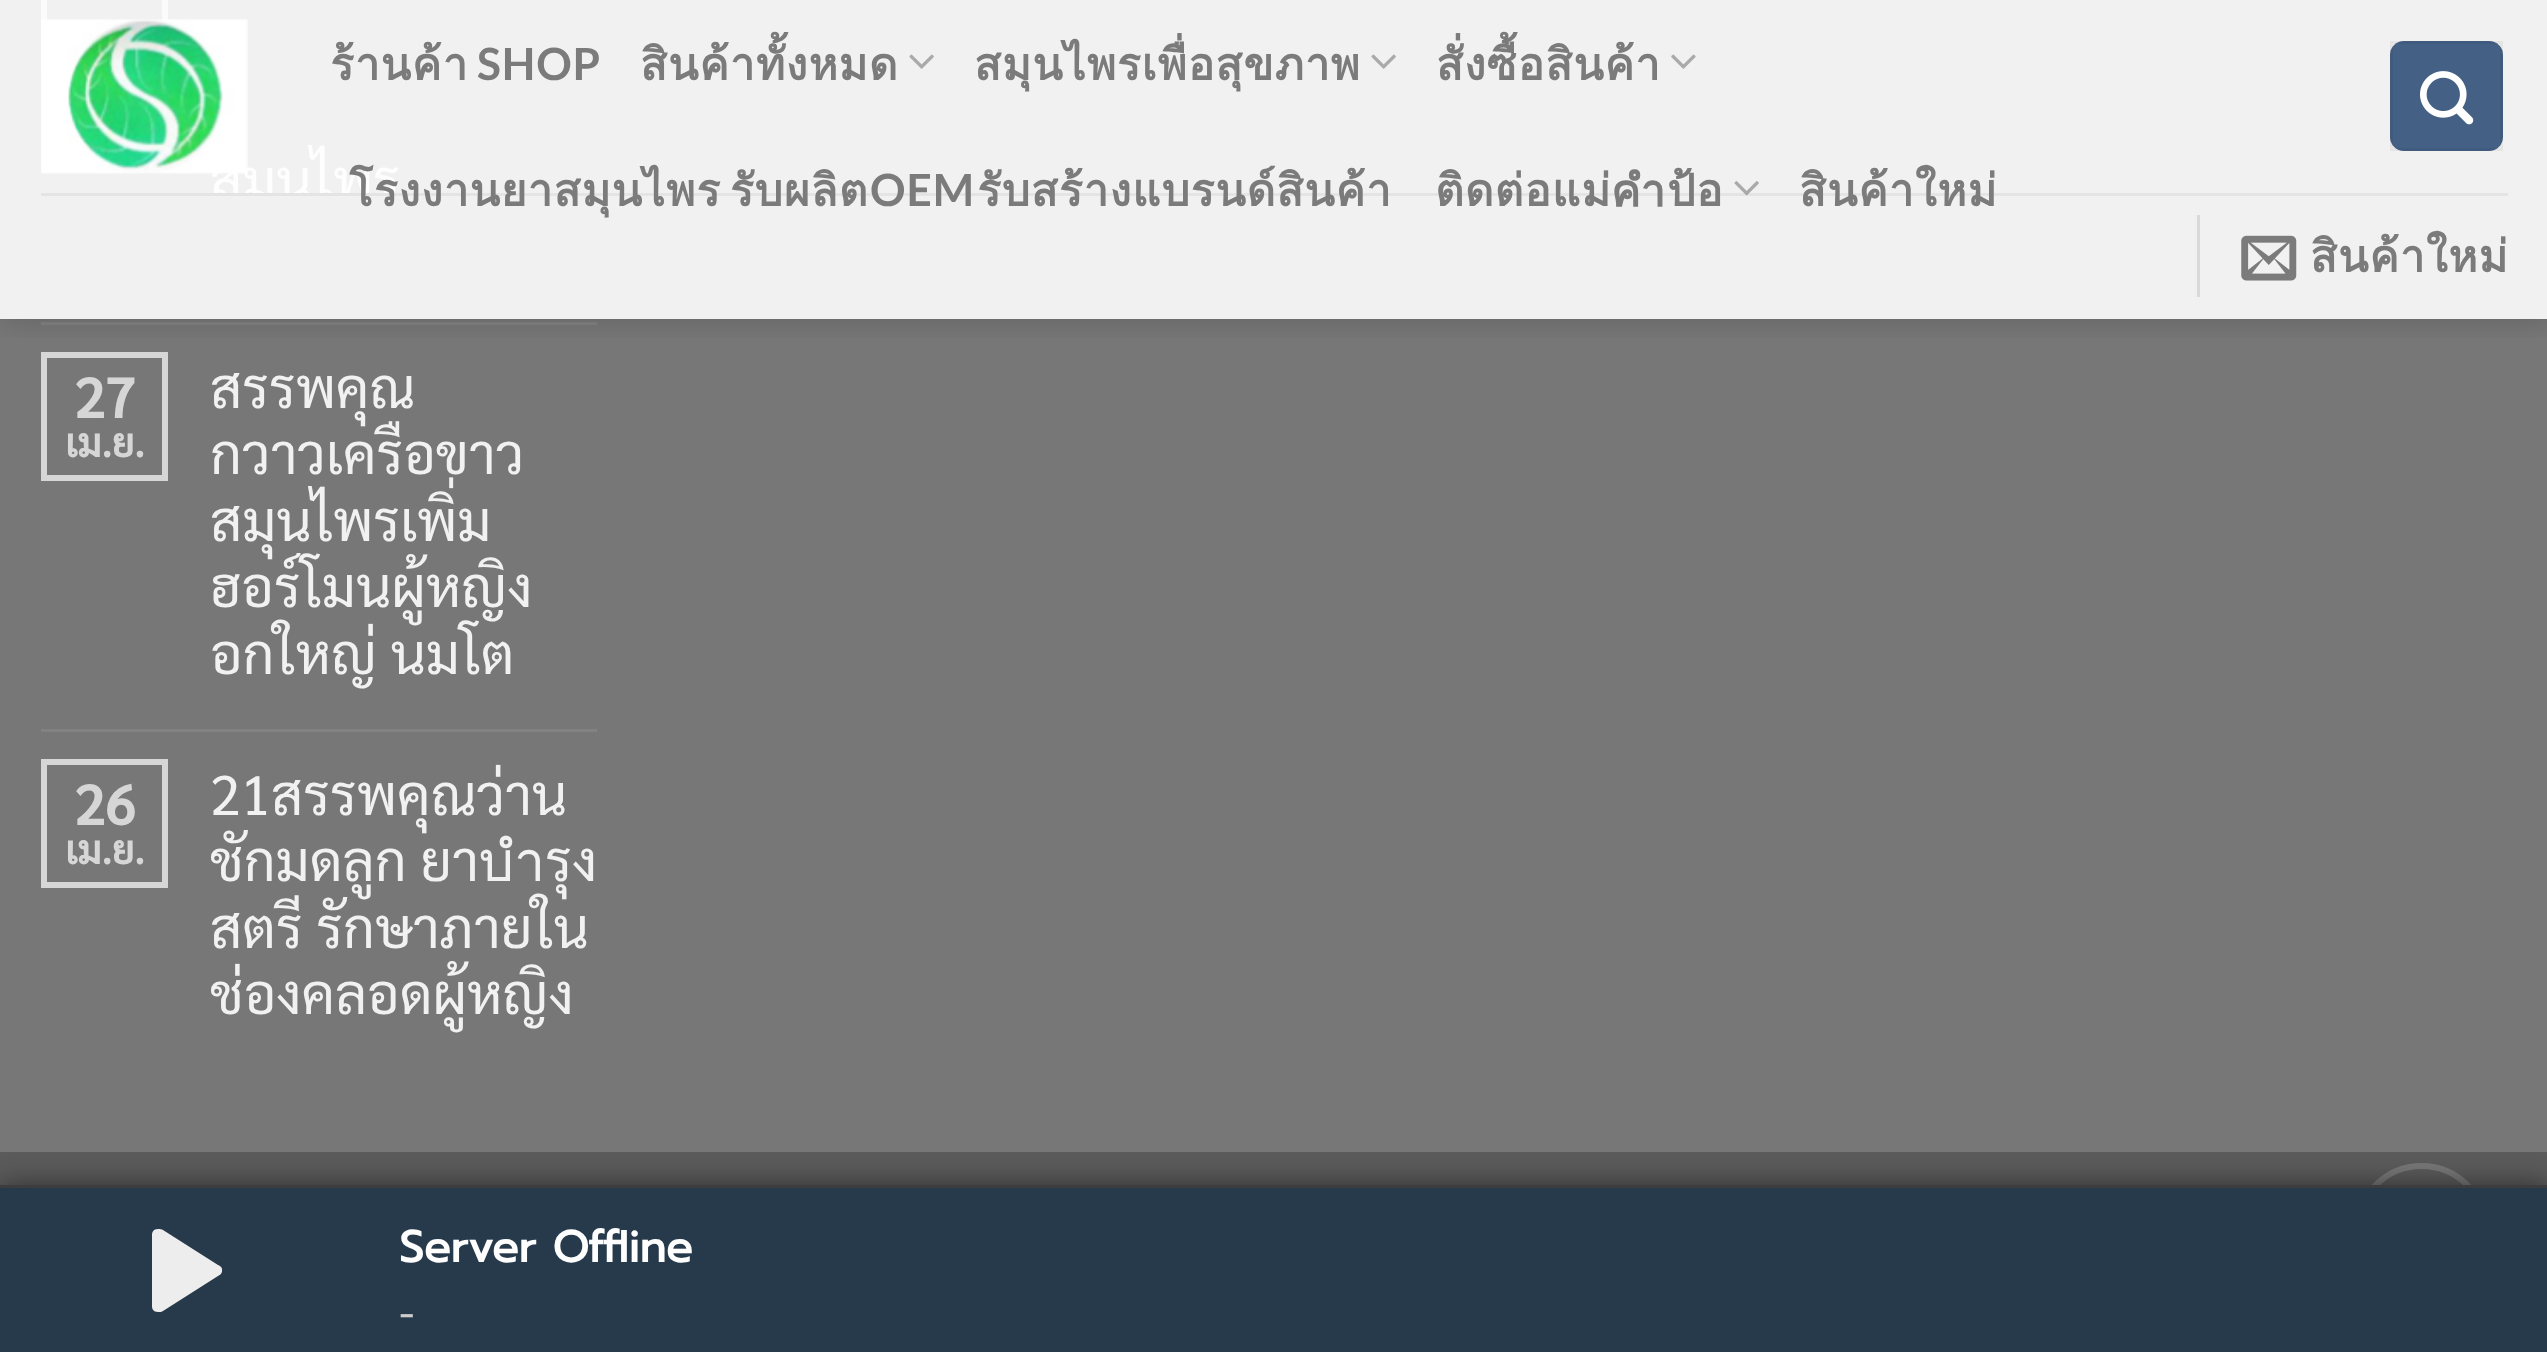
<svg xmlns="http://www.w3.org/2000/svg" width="2547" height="1352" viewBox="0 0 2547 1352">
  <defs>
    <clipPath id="clip1"><path d="M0 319h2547v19H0z"/></clipPath>
  </defs>
  <rect width="100%" height="100%" fill="#777"/>
  <path d="M0 0h2547v193H0z" fill="#f1f1f1"/>
  <path d="M44 -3h121v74H44z" fill="none" stroke="#fbfbfb" stroke-width="6"/>
  <path d="M41 322h556v3H41z" fill="#828282"/>
  <path d="M44 355h121v123H44z" fill="none" stroke="#d6d6d6" stroke-width="6"/>
  <g clip-path="url(#clip1)">
    <path d="M3 3h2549v319H3z" fill="#00000026" filter="blur(14px)"/>
  </g>
  <image x="909" y="54" width="25" height="15" href="img/2.png"/>
  <image x="1371" y="54" width="25" height="15" href="img/2.png"/>
  <image x="1671" y="54" width="25" height="15" href="img/3.png"/>
  <rect x="2390" y="41" width="113" height="110" rx="14" fill="#446084"/>
  <path d="M2391.5 42.5h110v107H2391.5z" fill="none" stroke="#0000000d" stroke-width="3"/>
  <image x="2420" y="71" width="54" height="54" href="img/5.png"/>
  <path d="M41 729h556v3H41z" fill="#828282"/>
  <path d="M44 762h121v123H44z" fill="none" stroke="#d6d6d6" stroke-width="6"/>
  <path d="M0 1152h2547v33H0z" fill="#5b5b5b"/>
  <circle cx="2421.5" cy="1230.5" r="64.5" fill="none" stroke="#777" stroke-width="6"/>
  <path d="M0 1185h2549v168H0z" fill="#00000080" filter="blur(14px)"/>
  <path d="M0 1188h2547v164H0z" fill="#273a4b"/>
  <path d="M0 1185h2547v3H0z" fill="#3d3d3d"/>
  <path d="M218 1265L163 1230C162 1229 160 1229 158 1229C152 1229 152 1234 152 1235V1306C152 1307 152 1312 158 1312C160 1312 162 1312 163 1311L218 1276C223 1274 222 1270 222 1270C222 1270 223 1267 218 1265Z" fill="#ededed" fill-rule="evenodd"/>
  <text x="330" y="80" font-family="Loma" font-size="44.4" font-weight="bold" letter-spacing="0.9" fill="#7b7b7b">ร้านค้า</text>
  <text x="477" y="80" font-family="Lato" font-size="44.4" font-weight="bold" letter-spacing="0.9" fill="#7b7b7b">SHOP</text>
  <g font-family="Loma" font-size="44.4" font-weight="bold" letter-spacing="0.9" fill="#7b7b7b">
    <text x="640" y="80">สินค้าทั้งหมด</text>
    <text x="974" y="80">สมุนไพรเพื่อสุขภาพ</text>
    <text x="1436" y="80">สั่งซื้อสินค้า</text>
  </g>
  <text x="210" y="200" font-family="Sarabun" font-size="55.5" fill="#fefefe">สมุนไพร</text>
  <path d="M0 193h2547v126H0z" fill="#f1f1f1"/>
  <image x="1734" y="181" width="25" height="15" href="img/4.png"/>
  <path d="M41 193h2467v3H41z" fill="#7777771a"/>
  <g font-family="Loma" font-size="44.4" font-weight="bold" letter-spacing="0.9" fill="#7b7b7b">
    <text x="1799" y="206">สินค้าใหม่</text>
    <text x="1435" y="206">ติดต่อแม่คำป้อ</text>
  </g>
  <text x="870" y="206" font-family="Lato" font-size="44.4" font-weight="bold" letter-spacing="0.9" fill="#7b7b7b">OEM</text>
  <g font-family="Loma" font-size="44.4" font-weight="bold" letter-spacing="0.9" fill="#7b7b7b">
    <text x="977" y="206">รับสร้างแบรนด์สินค้า</text>
    <text x="349" y="206" word-spacing="-7">โรงงานยาสมุนไพร รับผลิต</text>
  </g>
  <image x="41" y="19" width="207" height="155" href="img/1.png"/>
  <text x="2310" y="272" font-family="Loma" font-size="44.4" font-weight="bold" letter-spacing="0.9" fill="#7b7b7b">สินค้าใหม่</text>
  <image x="2241" y="235" width="56" height="46" href="img/6.png"/>
  <path d="M2197 215h3v82H2197z" fill="#d9d9d9"/>
  <text x="74" y="418" font-family="Sarabun" font-size="55.5" font-weight="bold" fill="#d6d6d6">27</text>
  <text x="65" y="457" font-family="Sarabun" font-size="39" font-weight="bold" fill="#d6d6d6">เม.ย.</text>
  <g font-family="Sarabun" font-size="55.5" fill="#f1f1f1">
    <text x="210" y="408">สรรพคุณ</text>
    <text x="210" y="474">กวาวเครือขาว</text>
    <text x="210" y="541">สมุนไพรเพิ่ม</text>
    <text x="210" y="607">ฮอร์โมนผู้หญิง</text>
    <text x="210" y="674">อกใหญ่ นมโต</text>
  </g>
  <text x="74" y="825" font-family="Sarabun" font-size="55.5" font-weight="bold" fill="#d6d6d6">26</text>
  <text x="65" y="864" font-family="Sarabun" font-size="39" font-weight="bold" fill="#d6d6d6">เม.ย.</text>
  <g font-family="Sarabun" font-size="55.5" fill="#f1f1f1">
    <text x="210" y="815">21สรรพคุณว่าน</text>
    <text x="210" y="881">ชักมดลูก ยาบำรุง</text>
    <text x="210" y="948">สตรี รักษาภายใน</text>
    <text x="210" y="1014">ช่องคลอดผู้หญิง</text>
  </g>
  <text x="399" y="1262" font-family="Prompt" font-size="44" font-weight="bold" fill="#fefefe">Server Offline</text>
  <text x="399" y="1327" font-family="Prompt" font-size="38" fill="#ccc">-</text>
</svg>
